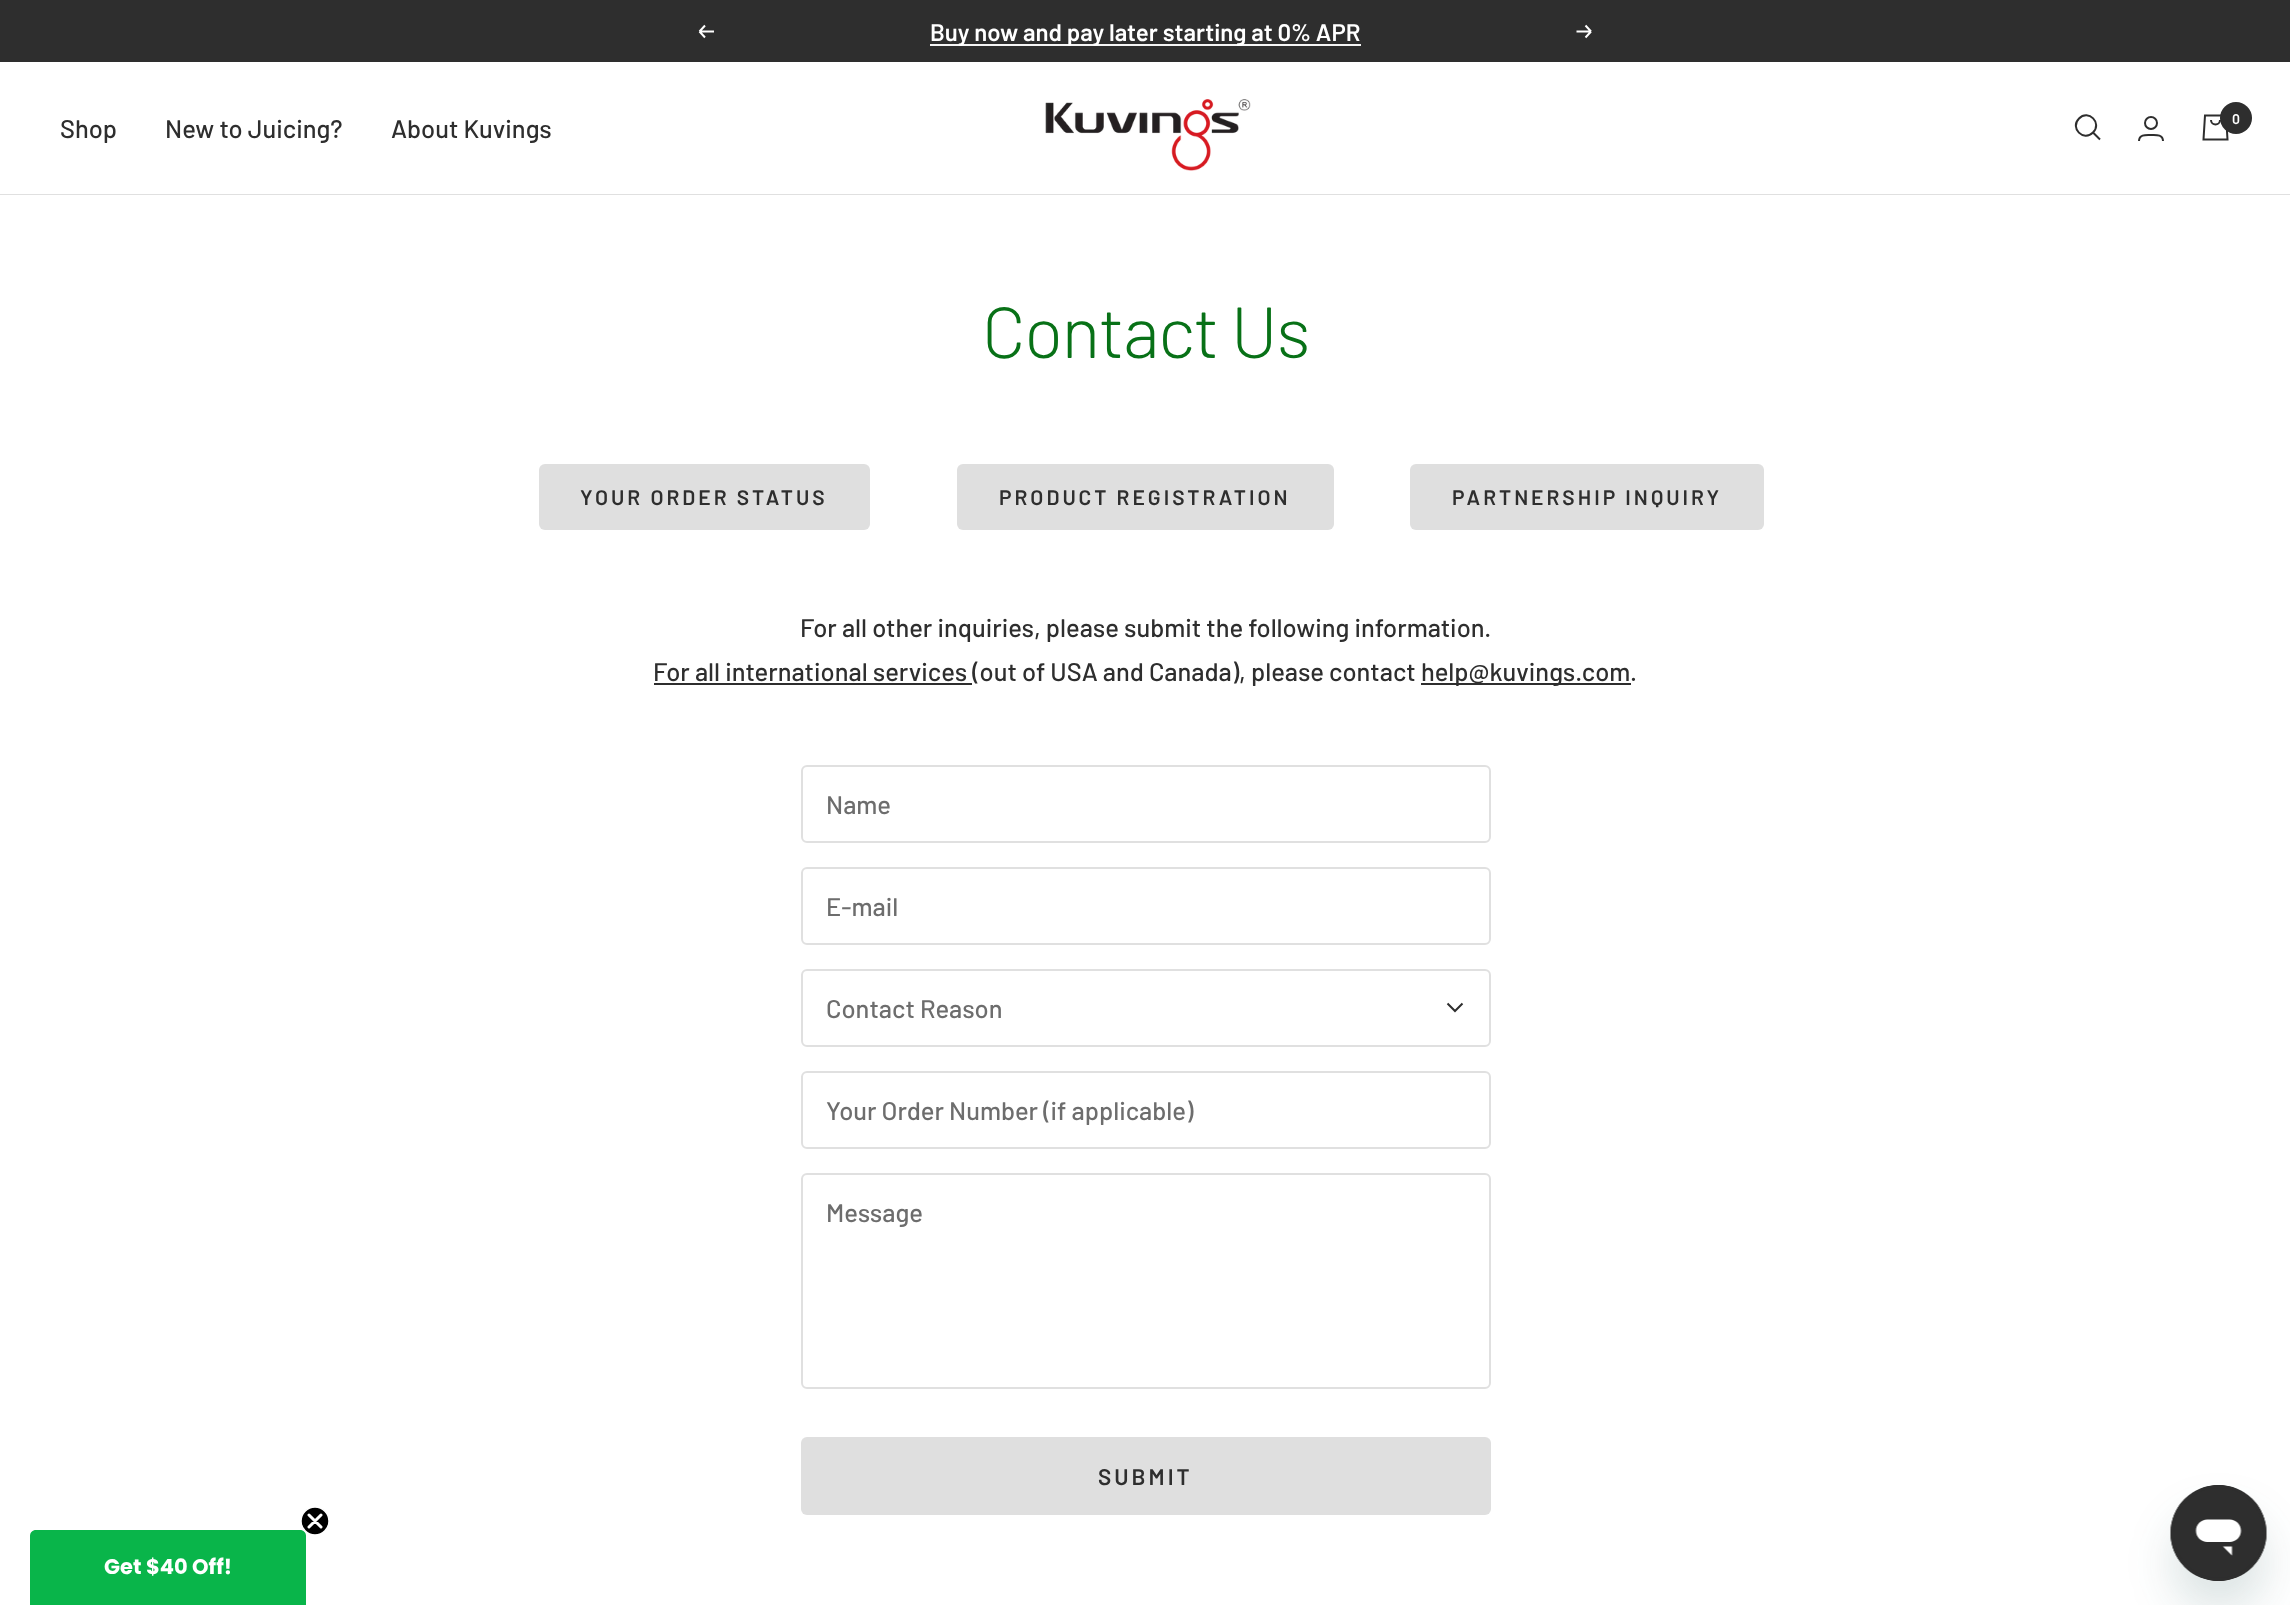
<svg xmlns="http://www.w3.org/2000/svg" width="2290" height="1605" viewBox="0 0 2290 1605">
  <rect width="100%" height="100%" fill="#fff"/>
  <path d="M0 0h2290v62H0z" fill="#2e2e2e"/>
  <path d="M714 31.5H699.5M699.5 31.5L705 37.5M699.5 31.5L705 25.5" fill="none" stroke="#fff" stroke-width="2"/>
  <path d="M930 44h431v2H930z" fill="#f5f5f5"/>
  <path d="M1576.5 31.5H1591M1591 31.5L1585.5 37.5M1591 31.5L1585.5 25.5" fill="none" stroke="#fff" stroke-width="2"/>
  <path d="M0 194V195H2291V63H2290V194Z" fill="#e0e0e0"/>
  <image x="1045" y="99" width="206" height="72" href="img/1.png"/>
  <path d="M2093 132.5C2102.5 123 2088.5 109 2079 118.5C2069.5 128 2083.5 142 2093 132.5ZM2093 132.5L2100 139.5" fill="none" stroke="#2e2e2e" stroke-width="2"/>
  <circle cx="2151" cy="123" r="6" fill="none" stroke="#2e2e2e" stroke-width="2"/>
  <path d="M2139 141C2139 134 2146.5 135 2151 135C2155.5 135 2163 134 2163 141" fill="none" stroke="#2e2e2e" stroke-width="2"/>
  <path d="M2205 115.5H2226L2227.5 139.5H2203.5ZM2211 120C2211 126 2220 126 2220 120" fill="none" stroke="#2e2e2e" stroke-width="2"/>
  <circle cx="2236" cy="118" r="16" fill="#2e2e2e"/>
  <rect x="539" y="464" width="331" height="66" rx="6" fill="#dfdfdf"/>
  <rect x="957" y="464" width="377" height="66" rx="6" fill="#dfdfdf"/>
  <rect x="1410" y="464" width="354" height="66" rx="6" fill="#dfdfdf"/>
  <path d="M654 683h318v2H654z" fill="#2e2e2e"/>
  <path d="M1421 683h210v2H1421z" fill="#2e2e2e"/>
  <rect x="802" y="766" width="688" height="76" rx="5" fill="none" stroke="#e0e0e0" stroke-width="2"/>
  <rect x="802" y="868" width="688" height="76" rx="5" fill="none" stroke="#e0e0e0" stroke-width="2"/>
  <rect x="802" y="970" width="688" height="76" rx="5" fill="none" stroke="#e0e0e0" stroke-width="2"/>
  <path d="M1447.5 1003.5L1455 1011L1462.5 1003.5" fill="none" stroke="#2e2e2e" stroke-width="2"/>
  <rect x="802" y="1072" width="688" height="76" rx="5" fill="none" stroke="#e0e0e0" stroke-width="2"/>
  <rect x="802" y="1174" width="688" height="214" rx="5" fill="none" stroke="#e0e0e0" stroke-width="2"/>
  <rect x="801" y="1437" width="690" height="78" rx="6" fill="#dfdfdf"/>
  <path d="M36 1530H300C303.5 1530 306 1532.5 306 1536V1605H30V1536C30 1532.5 32.5 1530 36 1530Z" fill="#09b54a"/>
  <circle cx="315" cy="1521" r="14" fill="#000" stroke="#fff" stroke-width="1.5"/>
  <path d="M309 1515L321 1527M309 1527L321 1515Z" fill="none" stroke="#fff" stroke-width="3" stroke-linecap="round" stroke-linejoin="round"/>
  <rect x="2171" y="1515" width="96" height="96" rx="48" fill="#17494d26" filter="blur(22.5px)"/>
  <image x="2170" y="1485" width="97" height="96" href="img/2.png"/>
  <text x="930" y="41" font-family="Barlow" font-size="24" font-weight="600" fill="#fff">Buy now and pay later starting at 0% APR</text>
  <g font-family="Barlow" font-size="25.5" font-weight="500" fill="#2e2e2e">
    <text x="60" y="138">Shop</text>
    <text x="165" y="138">New to Juicing?</text>
    <text x="391" y="138">About Kuvings</text>
  </g>
  <text x="2232" y="124" font-family="Barlow" font-size="14" font-weight="600" fill="#fff">0</text>
  <text x="982" y="358" font-family="Barlow" font-size="72" font-weight="300" letter-spacing="-1.5" fill="#087117">Contact Us</text>
  <g font-family="Barlow" font-size="21" font-weight="600" letter-spacing="3" fill="#2e2e2e">
    <text x="580" y="505">YOUR ORDER STATUS</text>
    <text x="999" y="505">PRODUCT REGISTRATION</text>
    <text x="1452" y="505">PARTNERSHIP INQUIRY</text>
  </g>
  <g font-family="Barlow" font-size="25.5" font-weight="500" fill="#2e2e2e">
    <text x="800" y="637">For all other inquiries, please submit the following information.</text>
    <text x="653" y="681">For all international services (out of USA and Canada), please contact</text>
    <text x="1421" y="681">help@kuvings.com</text>
    <text x="1630" y="681">.</text>
  </g>
  <g font-family="Barlow" font-size="25.5" font-weight="500" fill="#6d6d6d">
    <text x="826" y="814">Name</text>
    <text x="826" y="916">E-mail</text>
    <text x="826" y="1018">Contact Reason</text>
    <text x="826" y="1120">Your Order Number (if applicable)</text>
    <text x="826" y="1222">Message</text>
  </g>
  <text x="1098" y="1485" font-family="Barlow" font-size="22.5" font-weight="600" letter-spacing="3" fill="#2e2e2e">SUBMIT</text>
  <text x="104" y="1574" font-family="Poppins" font-size="21" font-weight="bold" fill="#fff">Get $40 Off!</text>
</svg>
